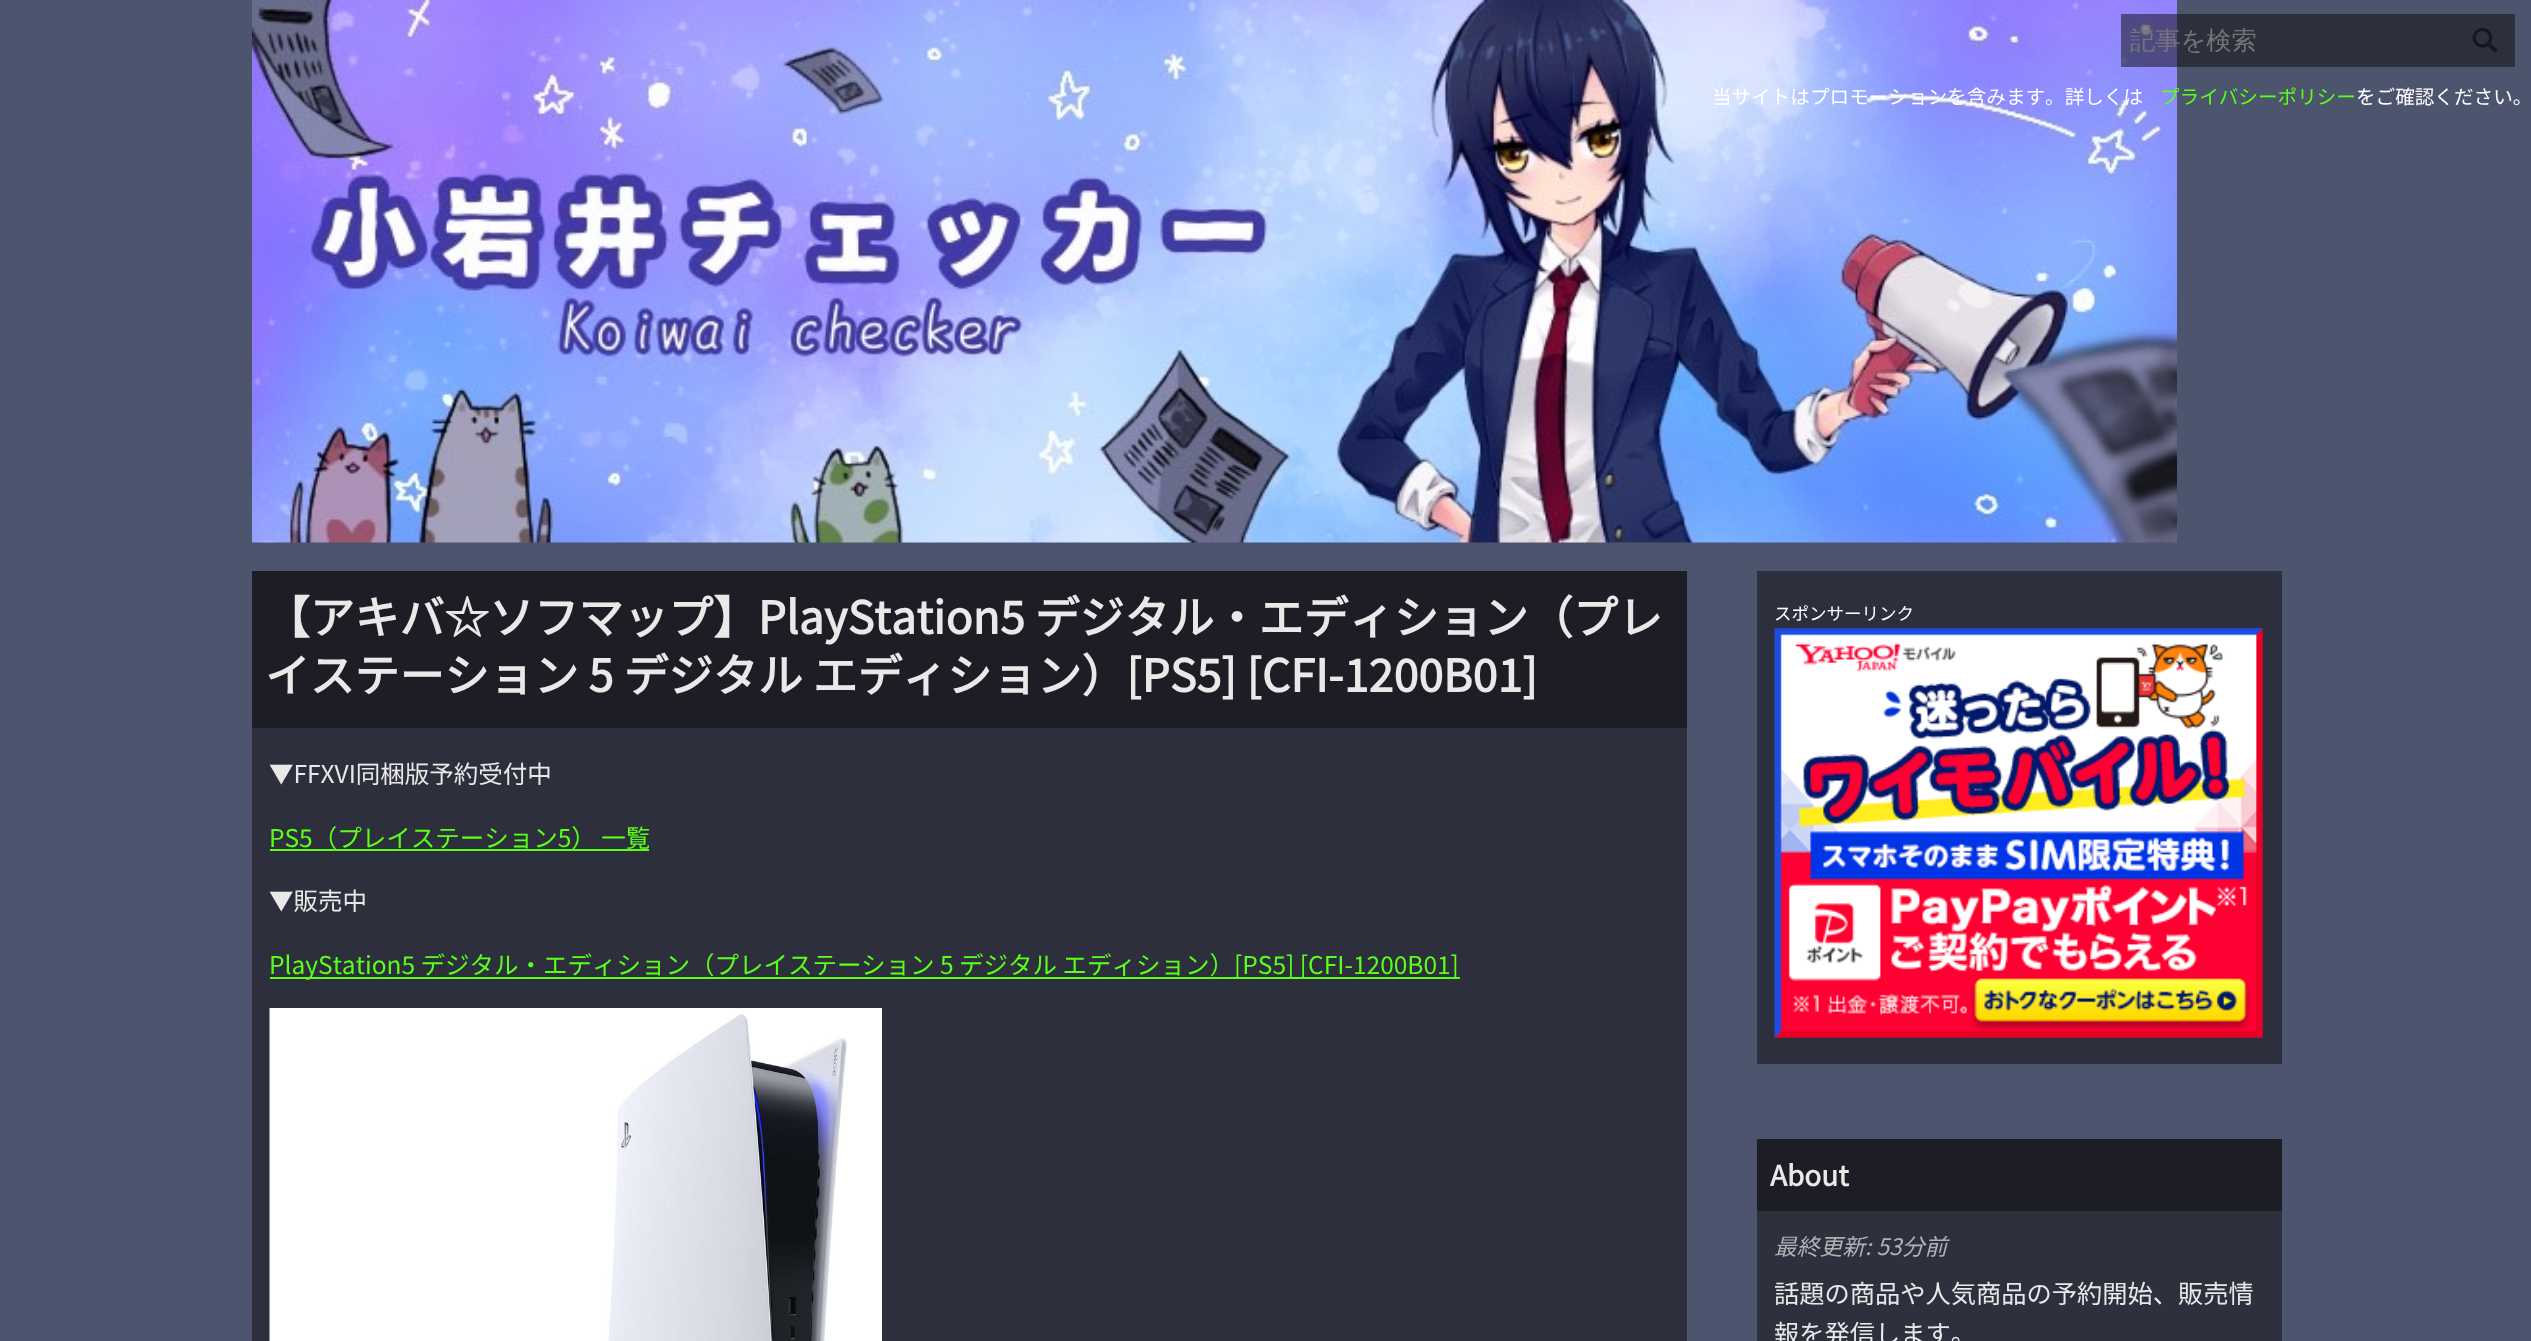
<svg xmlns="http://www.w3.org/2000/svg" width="2531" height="1341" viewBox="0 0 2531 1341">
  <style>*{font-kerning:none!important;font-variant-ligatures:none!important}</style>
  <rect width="100%" height="100%" fill="#4d546d"/>
  <image x="252" y="0" width="1925" height="543" href="img/1.png"/>
  <path d="M2121 14h394v53H2121z" fill="#0c0c0c80"/>
  <image x="2472" y="28" width="26" height="25" href="img/2.png"/>
  <path d="M252 728h1435v613H252z" fill="#2d2f3d"/>
  <path d="M252 571h1435v157H252z" fill="#1d1e25"/>
  <path d="M270 849h379v2H270z" fill="#5aff19"/>
  <path d="M270 977h1190v2H270z" fill="#5aff19"/>
  <image x="269" y="1008" width="613" height="333" href="img/3.png"/>
  <path d="M1757 571h525v493H1757z" fill="#2c303c"/>
  <image x="1774" y="628" width="489" height="410" href="img/4.png"/>
  <path d="M1757 1211h525v130H1757z" fill="#2d303d"/>
  <path d="M1757 1139h525v72H1757z" fill="#1d1e25"/>
  <text x="2130" y="49" font-family="WenQuanYi Zen Hei" font-size="25.25" font-weight="500" fill="#757575">記事を検索</text>
  <text x="1712" y="104" font-family="Noto Sans JP" font-size="19.6" font-weight="100" fill="#fff">当サイトはプロモーションを含みます。詳しくは</text>
  <text x="2160" y="104" font-family="Noto Sans JP" font-size="19.6" font-weight="100" fill="#5aff19">プライバシーポリシー</text>
  <text x="2356" y="104" font-family="Noto Sans JP" font-size="19.6" font-weight="100" fill="#fff">をご確認ください。</text>
  <g font-family="Noto Sans JP" font-size="44.8" font-weight="bold" fill="#e9e9e9">
    <text x="265" y="634">【アキバ☆ソフマップ】PlayStation5 デジタル・エデ</text>
    <text x="1349" y="634">ィション（プレ</text>
    <text x="265" y="692">イステーション 5 デジタル エディション）[PS5] [CFI-1200B01]</text>
  </g>
  <text x="269" y="783" font-family="Noto Sans JP" font-size="24.5" font-weight="100" fill="#e9e9e9">▼FFXVI同梱版予約受付中</text>
  <text x="269" y="847" font-family="Noto Sans JP" font-size="24.5" font-weight="100" fill="#5aff19">PS5（プレイステーション5） 一覧</text>
  <text x="269" y="910" font-family="Noto Sans JP" font-size="24.5" font-weight="100" fill="#e9e9e9">▼販売中</text>
  <text x="269" y="974" font-family="Noto Sans JP" font-size="24.5" font-weight="100" fill="#5aff19">PlayStation5 デジタル・エディション（プレイステー</text>
  <text x="861" y="974" font-family="Noto Sans JP" font-size="24.5" font-weight="100" fill="#5aff19">ション 5 デジタル エディション）[PS5] [CFI-1200B01]</text>
  <text x="1774" y="620" font-family="Noto Sans JP" font-size="17.5" font-weight="100" fill="#fff">スポンサーリンク</text>
  <text x="1770" y="1186" font-family="Noto Sans JP" font-size="28" font-weight="bold" fill="#e9e9e9">About</text>
  <text x="1774" y="1255" font-family="Noto Sans JP" font-size="22.75" font-weight="100" font-style="italic" fill="#b1b2b5">最終更新: 53分前</text>
  <g font-family="Noto Sans JP" font-size="25.25" font-weight="100" fill="#e9e9e9">
    <text x="1774" y="1303">話題の商品や人気商品の予約開始、販売情</text>
    <text x="1774" y="1343">報を発信します。</text>
  </g>
</svg>
